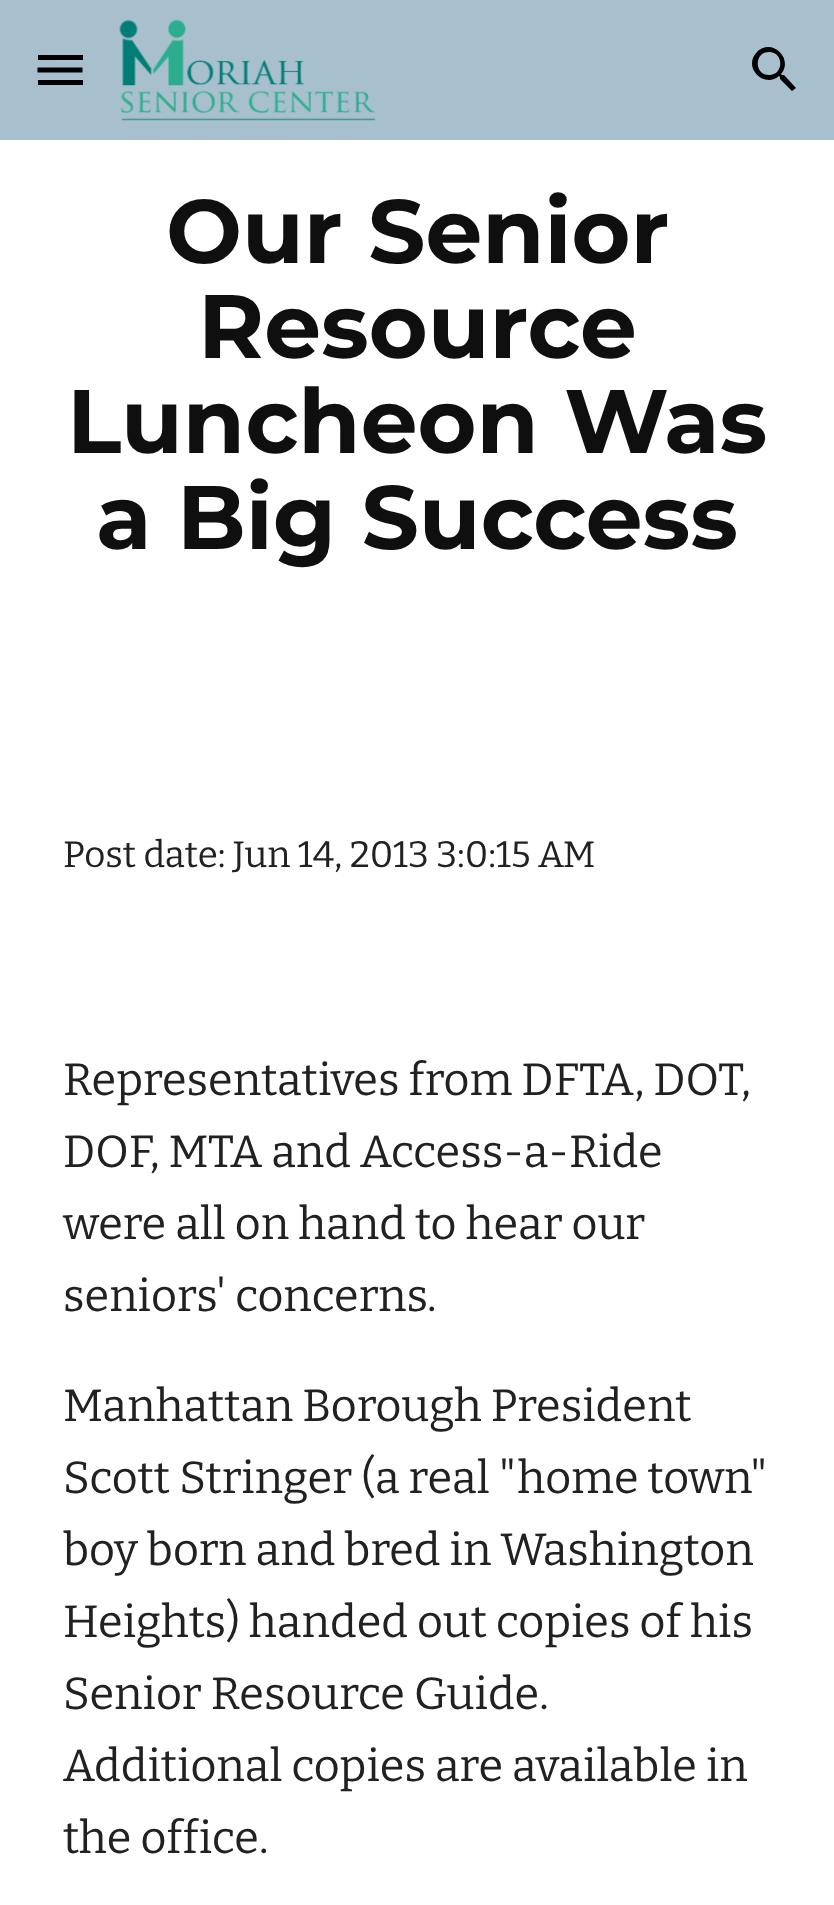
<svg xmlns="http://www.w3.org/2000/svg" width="834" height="1905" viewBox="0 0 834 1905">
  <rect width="100%" height="100%" fill="#fff"/>
  <path d="M0 0h834v140H0z" fill="#a8c0ce"/>
  <image x="119" y="19" width="257" height="102" href="img/1.png"/>
  <path d="M784 75H782L781 74C794 59 772 37 757 52C742 67 764 89 779 76L780 77V79L792 91L796 88ZM769 75C754 75 754 52 769 52C784 52 784 75 769 75Z" fill="#000"/>
  <path d="M38 55h45v5H38z" fill="#000"/>
  <path d="M37.5 70H82.5" fill="none" stroke="#000" stroke-width="5"/>
  <path d="M38 80h45v5H38z" fill="#000"/>
  <g font-family="Montserrat" font-size="90" font-weight="bold" fill="#0f0f0f">
    <text x="166" y="263">Our Senior</text>
    <text x="198" y="358">Resource</text>
    <text x="67" y="453">Luncheon Was</text>
    <text x="96" y="549">a Big Success</text>
  </g>
  <text x="63" y="867" font-family="Bitter" font-size="36.7" fill="#212121">Post date: Jun 14, 2013 3:0:15 AM</text>
  <g font-family="Bitter" font-size="45" fill="#212121">
    <text x="63" y="1095">Representatives from DFTA, DOT,</text>
    <text x="63" y="1167">DOF, MTA and Access-a-Ride</text>
    <text x="63" y="1239">were all on hand to hear our</text>
    <text x="63" y="1311">seniors' concerns.</text>
    <text x="63" y="1421">Manhattan Borough President</text>
    <text x="63" y="1493">Scott Stringer (a real "home town"</text>
    <text x="63" y="1565">boy born and bred in Washington</text>
    <text x="63" y="1637">Heights) handed out copies of his</text>
    <text x="63" y="1709">Senior Resource Guide.</text>
    <text x="63" y="1781">Additional copies are available in</text>
    <text x="63" y="1853">the office.</text>
  </g>
</svg>
